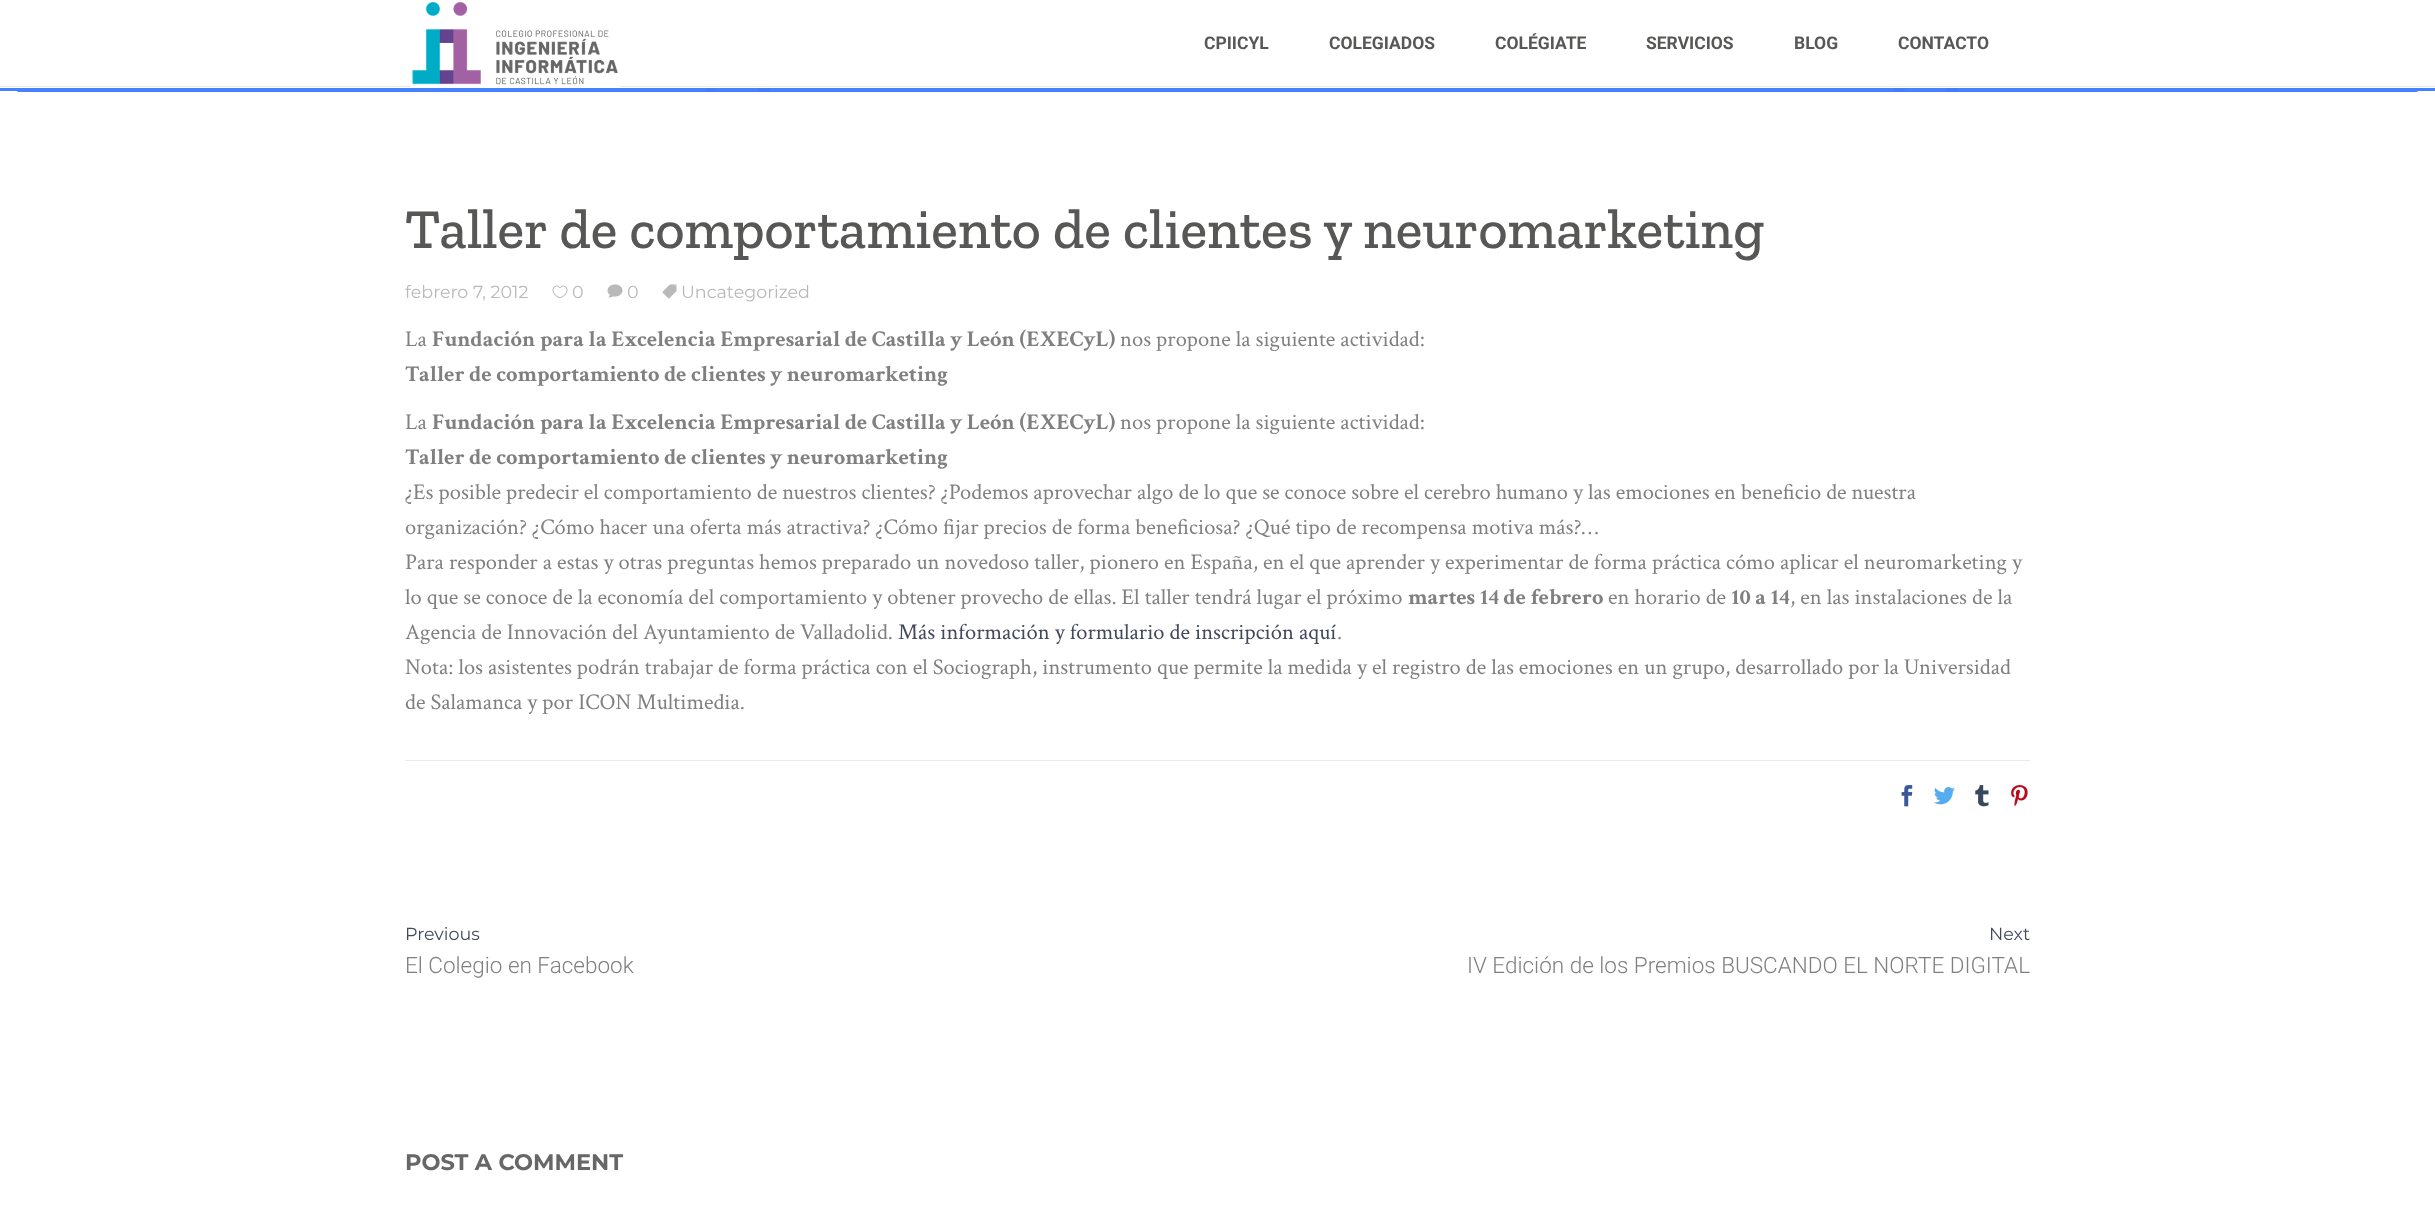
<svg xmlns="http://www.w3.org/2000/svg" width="2435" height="1205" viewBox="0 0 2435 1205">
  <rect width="100%" height="100%" fill="#fff"/>
  <path d="M0 86h2435v1H0z" fill="#ebebeb"/>
  <image x="410" y="1" width="210" height="86" href="img/1.png"/>
  <path d="M0 88h2435v3H0z" fill="#4582ff"/>
  <image x="17" y="88" width="2402" height="4" href="img/2.png"/>
  <image x="552" y="285" width="16" height="14" href="img/3.png"/>
  <image x="607" y="284" width="16" height="14" href="img/4.png"/>
  <image x="662" y="284" width="15" height="15" href="img/5.png"/>
  <path d="M405 760h1625v1H405z" fill="#ebebeb"/>
  <image x="1901" y="785" width="12" height="22" href="img/6.png"/>
  <image x="1934" y="787" width="21" height="18" href="img/7.png"/>
  <image x="1975" y="785" width="14" height="22" href="img/8.png"/>
  <image x="2011" y="785" width="17" height="22" href="img/9.png"/>
  <g font-family="Roboto" font-size="17.5" font-weight="bold" fill="#575756">
    <text x="1204" y="49">CPIICYL</text>
    <text x="1329" y="49">COLEGIADOS</text>
    <text x="1495" y="49">COLÉGIATE</text>
    <text x="1646" y="49">SERVICIOS</text>
    <text x="1794" y="49">BLOG</text>
    <text x="1898" y="49">CONTACTO</text>
  </g>
  <text x="405" y="248" font-family="Zilla Slab" font-size="56.25" font-weight="500" fill="#575756">Taller de comportamiento de clientes y neuromarketing</text>
  <g font-family="Montserrat" font-size="17.5" fill="#b9b9b9">
    <text x="405" y="298">febrero 7, 2012</text>
    <text x="572" y="298">0</text>
    <text x="627" y="298">0</text>
    <text x="681" y="298">Uncategorized</text>
  </g>
  <text x="405" y="346" font-family="Crimson Text" font-size="22.5" fill="#808080">La</text>
  <text x="432" y="346" font-family="Crimson Text" font-size="22.5" font-weight="bold" fill="#808080">Fundación para la Excelencia Empresarial de Castilla y León (EXECyL)</text>
  <text x="1120" y="346" font-family="Crimson Text" font-size="22.5" fill="#808080">nos propone la siguiente actividad:</text>
  <text x="405" y="381" font-family="Crimson Text" font-size="22.5" font-weight="bold" fill="#808080">Taller de comportamiento de clientes y neuromarketing</text>
  <text x="405" y="429" font-family="Crimson Text" font-size="22.5" fill="#808080">La</text>
  <text x="432" y="429" font-family="Crimson Text" font-size="22.5" font-weight="bold" fill="#808080">Fundación para la Excelencia Empresarial de Castilla y León (EXECyL)</text>
  <text x="1120" y="429" font-family="Crimson Text" font-size="22.5" fill="#808080">nos propone la siguiente actividad:</text>
  <text x="405" y="464" font-family="Crimson Text" font-size="22.5" font-weight="bold" fill="#808080">Taller de comportamiento de clientes y neuromarketing</text>
  <g font-family="Crimson Text" font-size="22.5" fill="#808080">
    <text x="405" y="499">¿Es posible predecir el comportamiento de nuestros clientes? ¿Podemos aprovechar algo de lo que se conoce sobre el cerebro humano y las emociones en beneficio de nuestra</text>
    <text x="405" y="534">organización? ¿Cómo hacer una oferta más atractiva? ¿Cómo fijar precios de forma beneficiosa? ¿Qué tipo de recompensa motiva más?…</text>
    <text x="405" y="569">Para responder a estas y otras preguntas hemos preparado un novedoso taller, pionero en España, en el que aprender y experimentar de forma práctica cómo aplicar el neuromarketing y</text>
    <text x="405" y="604">lo que se conoce de la economía del comportamiento y obtener provecho de ellas. El taller tendrá lugar el próximo</text>
  </g>
  <text x="1408" y="604" font-family="Crimson Text" font-size="22.5" font-weight="bold" fill="#808080">martes 14 de febrero</text>
  <text x="1608" y="604" font-family="Crimson Text" font-size="22.5" fill="#808080">en horario de</text>
  <text x="1731" y="604" font-family="Crimson Text" font-size="22.5" font-weight="bold" fill="#808080">10 a 14</text>
  <g font-family="Crimson Text" font-size="22.5" fill="#808080">
    <text x="1790" y="604">, en las instalaciones de la</text>
    <text x="405" y="639">Agencia de Innovación del Ayuntamiento de Valladolid.</text>
  </g>
  <text x="898" y="639" font-family="Crimson Text" font-size="22.5" fill="#42495b">Más información y formulario de inscripción aquí</text>
  <g font-family="Crimson Text" font-size="22.5" fill="#808080">
    <text x="1337" y="639">.</text>
    <text x="405" y="674">Nota: los asistentes podrán trabajar de forma práctica con el Sociograph, instrumento que permite la medida y el registro de las emociones en un grupo, desarrollado por la Universidad</text>
    <text x="405" y="709">de Salamanca y por ICON Multimedia.</text>
  </g>
  <text x="405" y="940" font-family="Montserrat" font-size="17.5" fill="#42495b">Previous</text>
  <text x="405" y="973" font-family="Roboto" font-size="22.5" font-weight="300" fill="#808080">El Colegio en Facebook</text>
  <text x="1989" y="940" font-family="Montserrat" font-size="17.5" fill="#42495b">Next</text>
  <text x="1467" y="973" font-family="Roboto" font-size="22.5" font-weight="300" fill="#808080">IV Edición de los Premios BUSCANDO EL NORTE DIGITAL</text>
  <text x="405" y="1170" font-family="Montserrat" font-size="22.5" font-weight="bold" fill="#676767">POST A COMMENT</text>
</svg>
